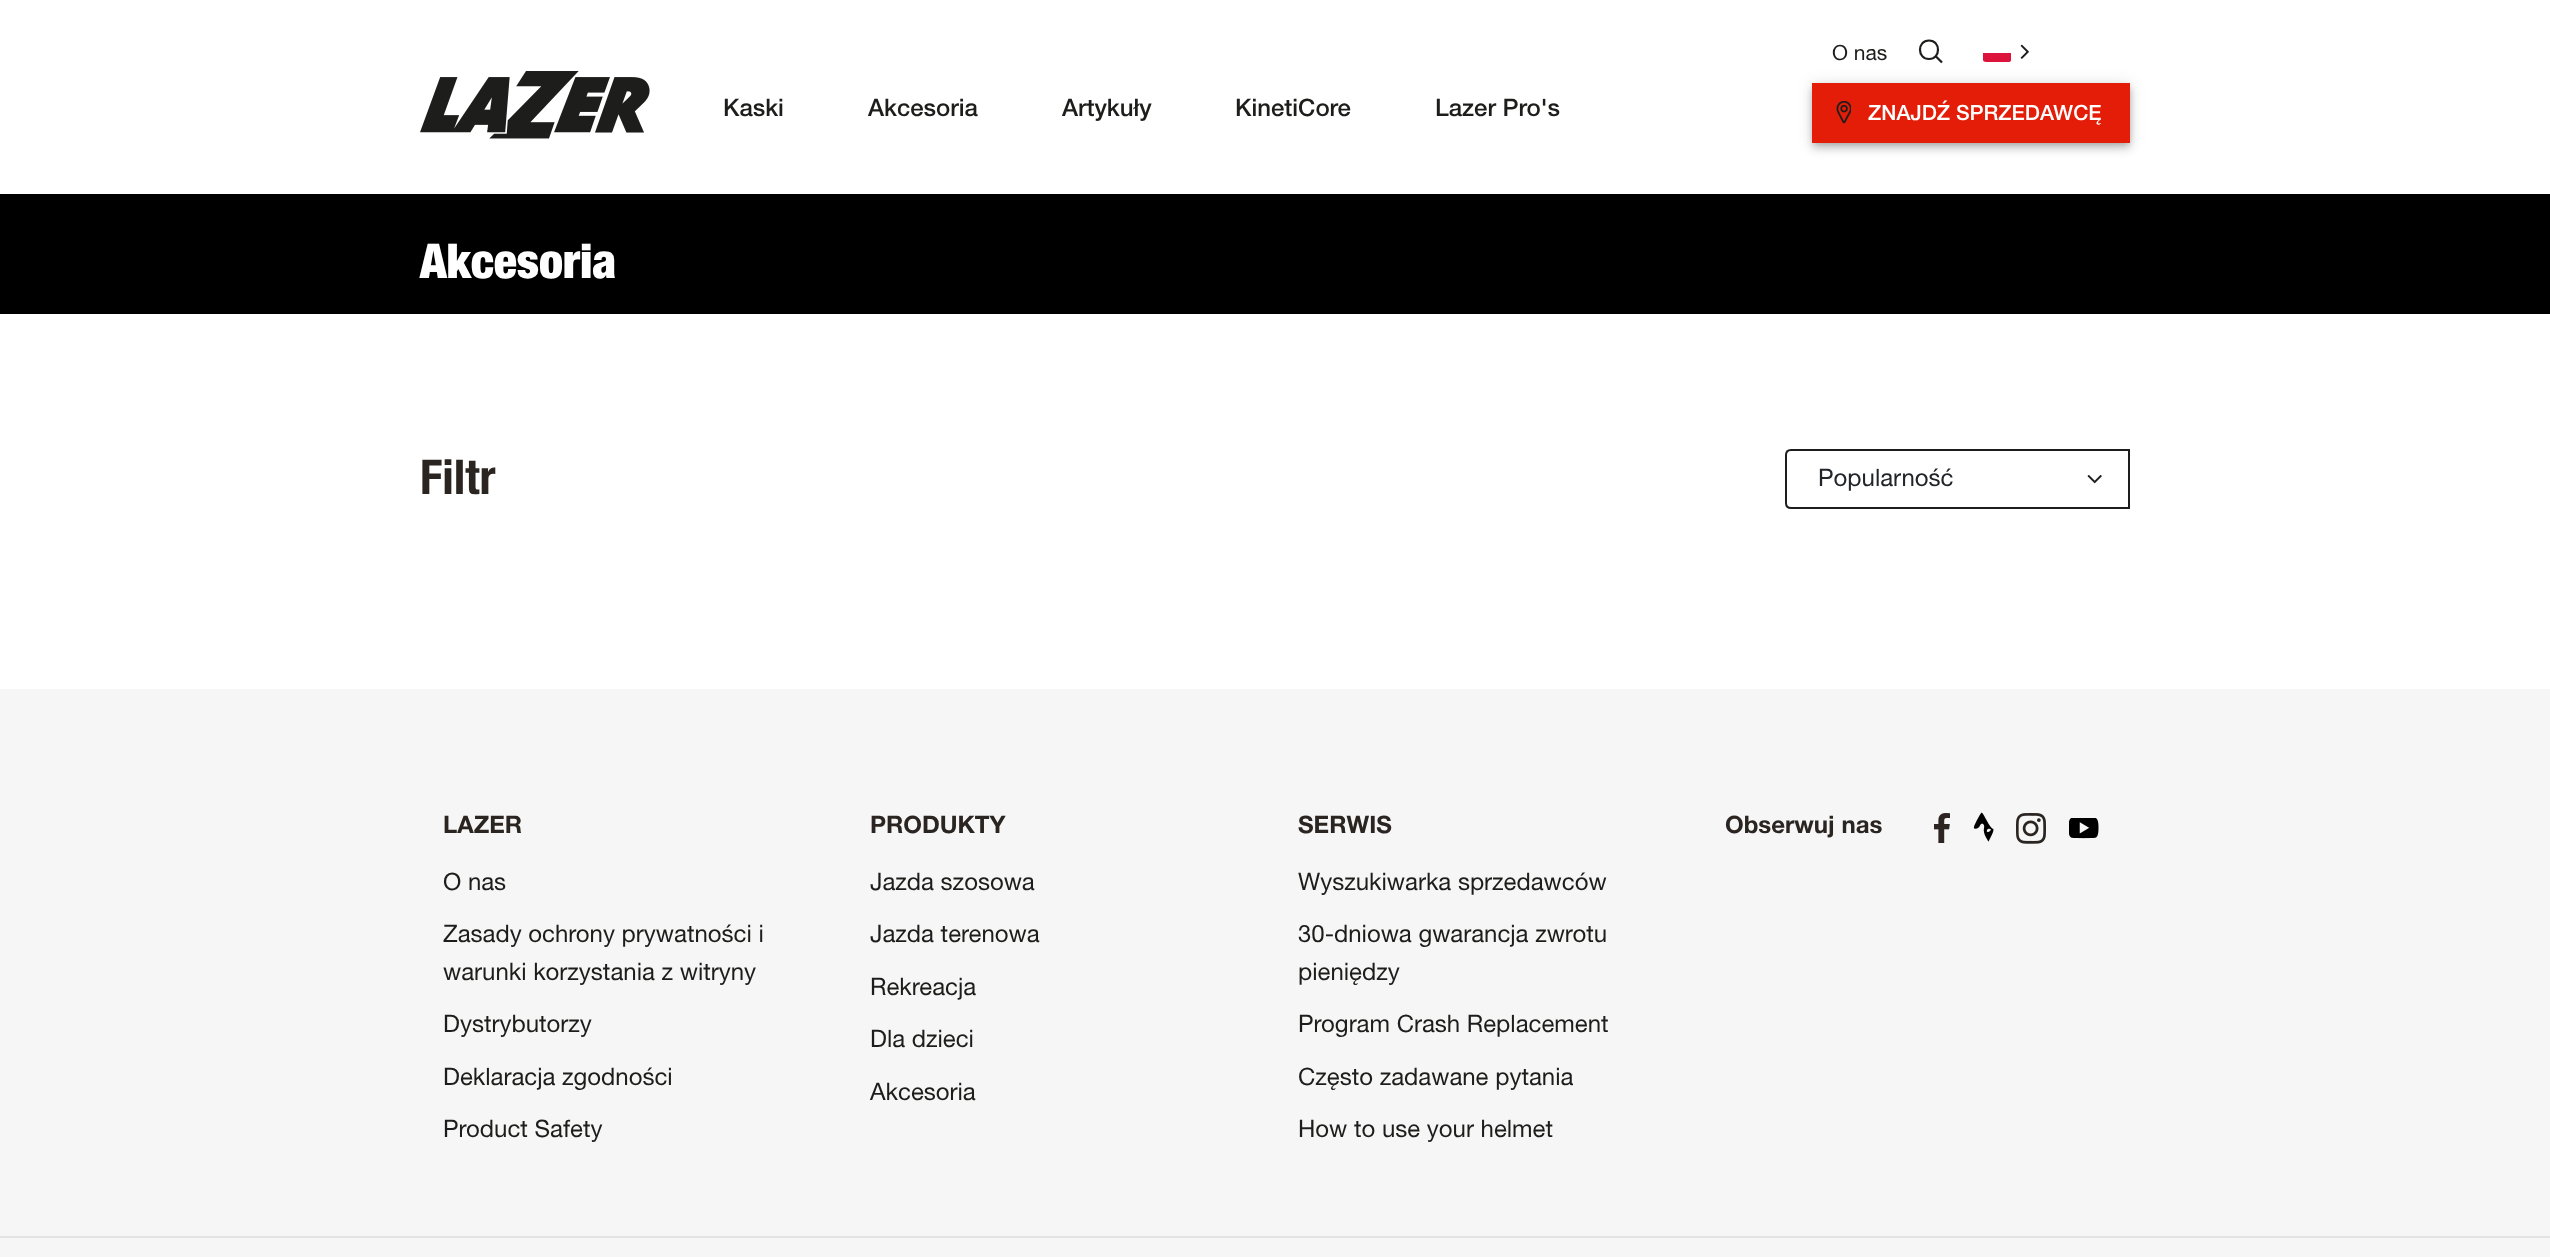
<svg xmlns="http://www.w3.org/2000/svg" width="2550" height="1257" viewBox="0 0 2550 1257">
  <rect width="100%" height="100%" fill="#fff"/>
  <image x="420" y="71" width="230" height="68" href="img/1.png"/>
  <path d="M1929 59C1941 59 1941 40.5 1929 40.5C1917 40.5 1917 59 1929 59ZM1936 56.5L1942 62.5" fill="none" stroke="#1d1d1b" stroke-width="2.2"/>
  <path d="M2011 60.5C2010.5 61.5 2009.5 62 2008.5 62H1986C1984.5 62 1983 61 1983 60V53H2011Z" fill="#dc143c"/>
  <image x="2020" y="44" width="9" height="15" href="img/2.png"/>
  <path d="M1814 87h315v57H1814z" fill="#00000033" filter="blur(3px)"/>
  <path d="M1812 84h318v60H1812z" fill="#0000001f" filter="blur(7.5px)"/>
  <path d="M1812 89h318v60H1812z" fill="#00000024" filter="blur(4px)"/>
  <path d="M1812 83h318v60H1812z" fill="#e41d09"/>
  <image x="1836" y="101" width="15" height="23" href="img/3.png"/>
  <path d="M0 194h2550v120H0z" fill="#000"/>
  <path d="M1791 450H2129V508H1791C1788 508 1786 506 1786 503V455C1786 452 1788 450 1791 450Z" fill="none" stroke="#1d1d1b" stroke-width="2"/>
  <image x="2087" y="475" width="15" height="9" href="img/4.png"/>
  <path d="M0 689h2550v568H0z" fill="#f6f6f6"/>
  <image x="1934" y="813" width="16" height="30" href="img/5.png"/>
  <image x="1973" y="812" width="21" height="30" href="img/6.png"/>
  <image x="2016" y="813" width="30" height="31" href="img/7.png"/>
  <image x="2069" y="818" width="30" height="21" href="img/8.png"/>
  <path d="M0 1236h2550v2H0z" fill="#e3e3e3"/>
  <g font-family="Helvetica Neue" font-size="24" font-weight="500" fill="#1d1d1b">
    <text x="723" y="116">Kaski</text>
    <text x="868" y="116">Akcesoria</text>
    <text x="1062" y="116">Artykuły</text>
    <text x="1235" y="116">KinetiCore</text>
    <text x="1435" y="116">Lazer Pro's</text>
  </g>
  <text x="1832" y="60" font-family="Helvetica Neue" font-size="21" fill="#1d1d1b">O nas</text>
  <text x="1868" y="120" font-family="Helvetica Neue" font-size="21" font-weight="500" fill="#fff">ZNAJDŹ SPRZEDAWCĘ</text>
  <text x="420" y="278" font-family="Helvetica Neue" font-size="48" font-weight="900" fill="#fff">Akcesoria</text>
  <text x="420" y="494" font-family="Helvetica Neue" font-size="48" font-weight="bold" fill="#2b2522">Filtr</text>
  <text x="1818" y="486" font-family="Helvetica Neue" font-size="24" fill="#212529">Popularność</text>
  <text x="443" y="833" font-family="'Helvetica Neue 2'" font-size="24" font-weight="bold" fill="#2b2522">LAZER</text>
  <g font-family="Helvetica Neue" font-size="24" fill="#1d1d1b">
    <text x="443" y="890">O nas</text>
    <text x="443" y="942">Zasady ochrony prywatności i</text>
    <text x="443" y="980">warunki korzystania z witryny</text>
    <text x="443" y="1032">Dystrybutorzy</text>
    <text x="443" y="1085">Deklaracja zgodności</text>
    <text x="443" y="1137">Product Safety</text>
  </g>
  <text x="870" y="833" font-family="'Helvetica Neue 2'" font-size="24" font-weight="bold" fill="#2b2522">PRODUKTY</text>
  <g font-family="Helvetica Neue" font-size="24" fill="#1d1d1b">
    <text x="870" y="890">Jazda szosowa</text>
    <text x="870" y="942">Jazda terenowa</text>
    <text x="870" y="995">Rekreacja</text>
    <text x="870" y="1047">Dla dzieci</text>
    <text x="870" y="1100">Akcesoria</text>
  </g>
  <text x="1298" y="833" font-family="'Helvetica Neue 2'" font-size="24" font-weight="bold" fill="#2b2522">SERWIS</text>
  <g font-family="Helvetica Neue" font-size="24" fill="#1d1d1b">
    <text x="1298" y="890">Wyszukiwarka sprzedawców</text>
    <text x="1298" y="942">30-dniowa gwarancja zwrotu</text>
    <text x="1298" y="980">pieniędzy</text>
    <text x="1298" y="1032">Program Crash Replacement</text>
    <text x="1298" y="1085">Często zadawane pytania</text>
    <text x="1298" y="1137">How to use your helmet</text>
  </g>
  <text x="1725" y="833" font-family="'Helvetica Neue 2'" font-size="24" font-weight="bold" fill="#2b2522">Obserwuj nas</text>
</svg>
